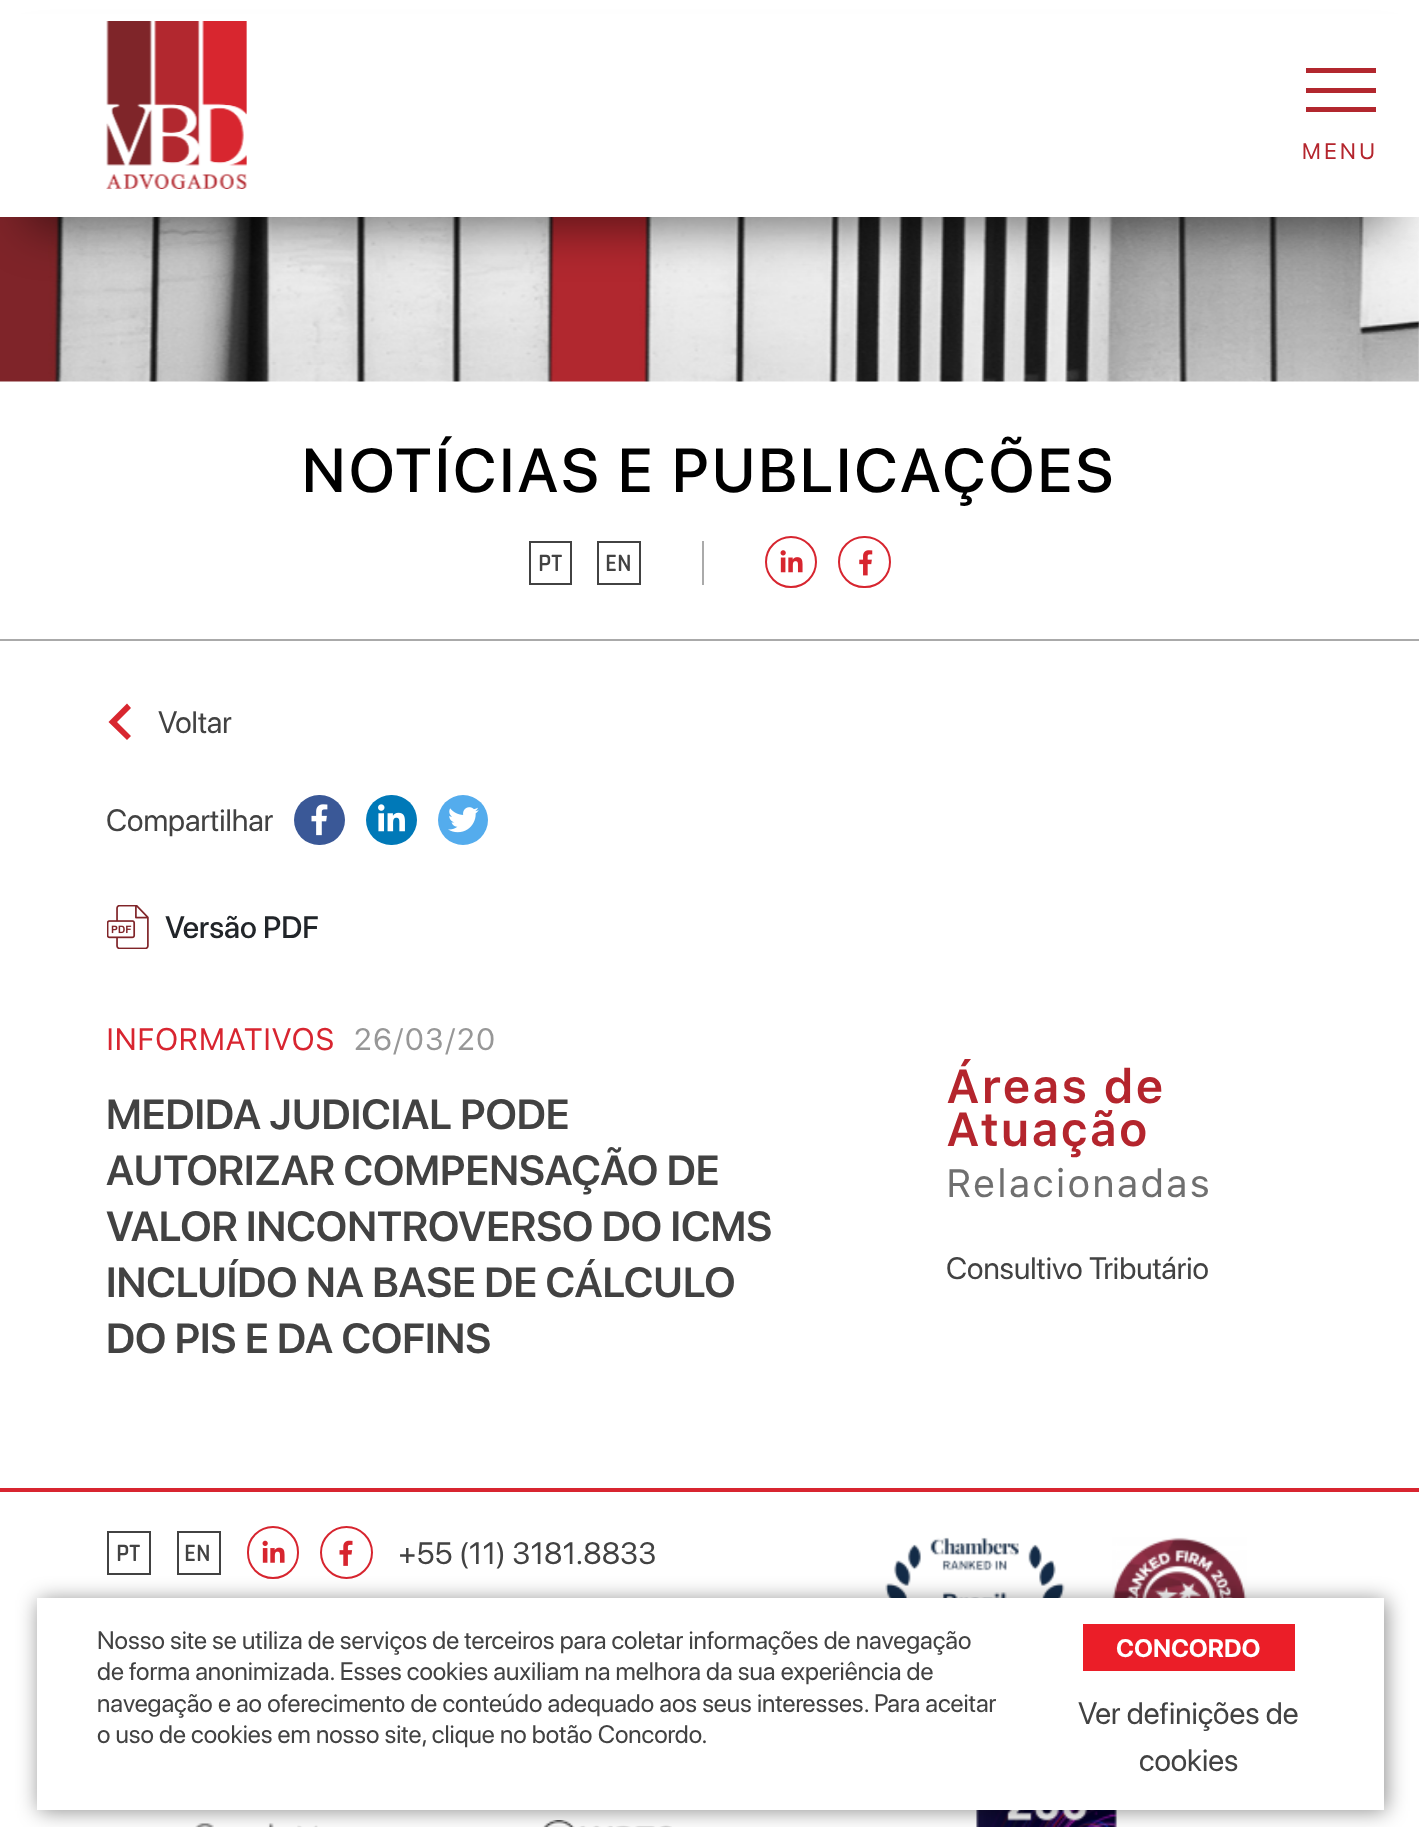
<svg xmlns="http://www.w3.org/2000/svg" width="1419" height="1827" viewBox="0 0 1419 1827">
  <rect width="100%" height="100%" fill="#fff"/>
  <image x="0" y="217" width="1419" height="165" href="img/2.png"/>
  <path d="M28 65h1363v161H28z" fill="#00000085" filter="blur(24.5px)"/>
  <path d="M0 14h1419v203H0z" fill="#fff"/>
  <image x="106" y="21" width="141" height="168" href="img/1.png"/>
  <path d="M1306 88h70v5H1306z" fill="#b2272e"/>
  <path d="M1306 68h70v5H1306z" fill="#b2272e"/>
  <path d="M1306 107h70v5H1306z" fill="#b2272e"/>
  <path d="M0 639h1419v2H0z" fill="#aaa"/>
  <path d="M702 541h2v44H702z" fill="#aaa"/>
  <path d="M530 542h41v42H530z" fill="none" stroke="#424242" stroke-width="2"/>
  <path d="M598 542h42v42H598z" fill="none" stroke="#424242" stroke-width="2"/>
  <circle cx="791" cy="562" r="25" fill="none" stroke="#d7252f" stroke-width="2"/>
  <image x="780" y="550" width="23" height="23" href="img/3.png"/>
  <rect x="839" y="537" width="51" height="50" rx="25" fill="none" stroke="#d7252f" stroke-width="2"/>
  <image x="859" y="550" width="14" height="26" href="img/4.png"/>
  <path d="M131 736L117 722L131 708L127 703.5L108.5 722L127 740Z" fill="#d8262f"/>
  <rect x="294" y="795" width="51" height="50" rx="25" fill="#3a5897"/>
  <image x="311" y="804" width="17" height="32" href="img/5.png"/>
  <rect x="366" y="795" width="51" height="50" rx="25" fill="#0079b8"/>
  <image x="378" y="804" width="27" height="28" href="img/6.png"/>
  <circle cx="463" cy="820" r="25" fill="#54aced"/>
  <image x="448" y="807" width="31" height="26" href="img/7.png"/>
  <image x="107" y="905" width="42" height="44" href="img/8.png"/>
  <path d="M0 1488h1419v4H0z" fill="#d82530"/>
  <path d="M108 1532h42v42H108z" fill="none" stroke="#424242" stroke-width="2"/>
  <path d="M178 1532h42v42H178z" fill="none" stroke="#424242" stroke-width="2"/>
  <rect x="248" y="1527" width="50" height="51" rx="25" fill="none" stroke="#d7252f" stroke-width="2"/>
  <image x="262" y="1540" width="23" height="23" href="img/9.png"/>
  <circle cx="346.5" cy="1552.5" r="25.5" fill="none" stroke="#d7252f" stroke-width="2"/>
  <image x="339" y="1540" width="14" height="26" href="img/10.png"/>
  <image x="195" y="1823" width="123" height="4" href="img/11.png"/>
  <image x="542" y="1820" width="130" height="7" href="img/12.png"/>
  <image x="885" y="1537" width="180" height="61" href="img/13.png"/>
  <image x="1112" y="1537" width="135" height="61" href="img/14.png"/>
  <image x="976" y="1810" width="141" height="17" href="img/15.png"/>
  <path d="M39 1600h1347v211H39z" fill="#00000073" filter="blur(10.5px)"/>
  <path d="M37 1598h1347v212H37z" fill="#fff"/>
  <path d="M1083 1624h212v47H1083z" fill="#eb1e28"/>
  <text x="1302" y="159" font-family="SF Pro Display" font-size="22.5" letter-spacing="3.5" fill="#b4252d">MENU</text>
  <text x="302" y="492" font-family="SF Pro Display" font-size="61.6" font-weight="500" letter-spacing="3.5" fill="#000">NOTÍCIAS E PUBLICAÇÕES</text>
  <g font-family="Rajdhani" font-size="25.2" font-weight="600" fill="#424242">
    <text x="538" y="571">PT</text>
    <text x="605" y="571">EN</text>
  </g>
  <g font-family="SF Pro Display" font-size="30.75" fill="#424242">
    <text x="158" y="733">Voltar</text>
    <text x="106" y="831">Compartilhar</text>
  </g>
  <text x="165" y="938" font-family="SF Pro Display" font-size="30.75" font-weight="500" fill="#212529">Versão PDF</text>
  <text x="106" y="1050" font-family="SF Pro Text" font-size="30.75" fill="#d82530">INFORMATIVOS</text>
  <text x="354" y="1050" font-family="SF Pro Display" font-size="30.75" letter-spacing="1.75" fill="#979797">26/03/20</text>
  <g font-family="SF Pro Display" font-size="42" font-weight="600" fill="#424242">
    <text x="106" y="1129">MEDIDA JUDICIAL PODE</text>
    <text x="106" y="1185">AUTORIZAR COMPENSAÇÃO DE</text>
    <text x="106" y="1241">VALOR INCONTROVERSO DO ICMS</text>
    <text x="106" y="1297">INCLUÍDO NA BASE DE CÁLCULO</text>
    <text x="106" y="1353">DO PIS E DA COFINS</text>
  </g>
  <g font-family="SF Pro Text" font-size="47.5" font-weight="600" letter-spacing="1.75" fill="#b4252d">
    <text x="946" y="1103">Áreas de</text>
    <text x="946" y="1146">Atuação</text>
  </g>
  <text x="946" y="1197" font-family="SF Pro Text" font-size="39.25" letter-spacing="1.75" fill="#6f6f6f">Relacionadas</text>
  <text x="946" y="1279" font-family="SF Pro Display" font-size="30.75" fill="#424242">Consultivo Tributário</text>
  <g font-family="Rajdhani" font-size="25.2" font-weight="600" fill="#424242">
    <text x="116" y="1561">PT</text>
    <text x="184" y="1561">EN</text>
  </g>
  <text x="398" y="1564" font-family="SF Pro Display" font-size="30.75" fill="#424242">+55 (11) 3181.8833</text>
  <g font-family="SF Pro Display" font-size="25.2" fill="#424242">
    <text x="97" y="1649">Nosso site se utiliza de serviços de terceiros para coletar informações de navegação</text>
    <text x="97" y="1680">de forma anonimizada. Esses cookies auxiliam na melhora da sua experiência de</text>
    <text x="97" y="1712">navegação e ao oferecimento de conteúdo adequado aos seus interesses. Para aceitar</text>
    <text x="97" y="1743">o uso de cookies em nosso site, clique no botão Concordo.</text>
  </g>
  <text x="1116" y="1657" font-family="SF Pro Display" font-size="25.2" font-weight="bold" fill="#fff">CONCORDO</text>
  <g font-family="SF Pro Display" font-size="30.75" fill="#424242">
    <text x="1078" y="1724">Ver definições de</text>
    <text x="1139" y="1771">cookies</text>
  </g>
</svg>
